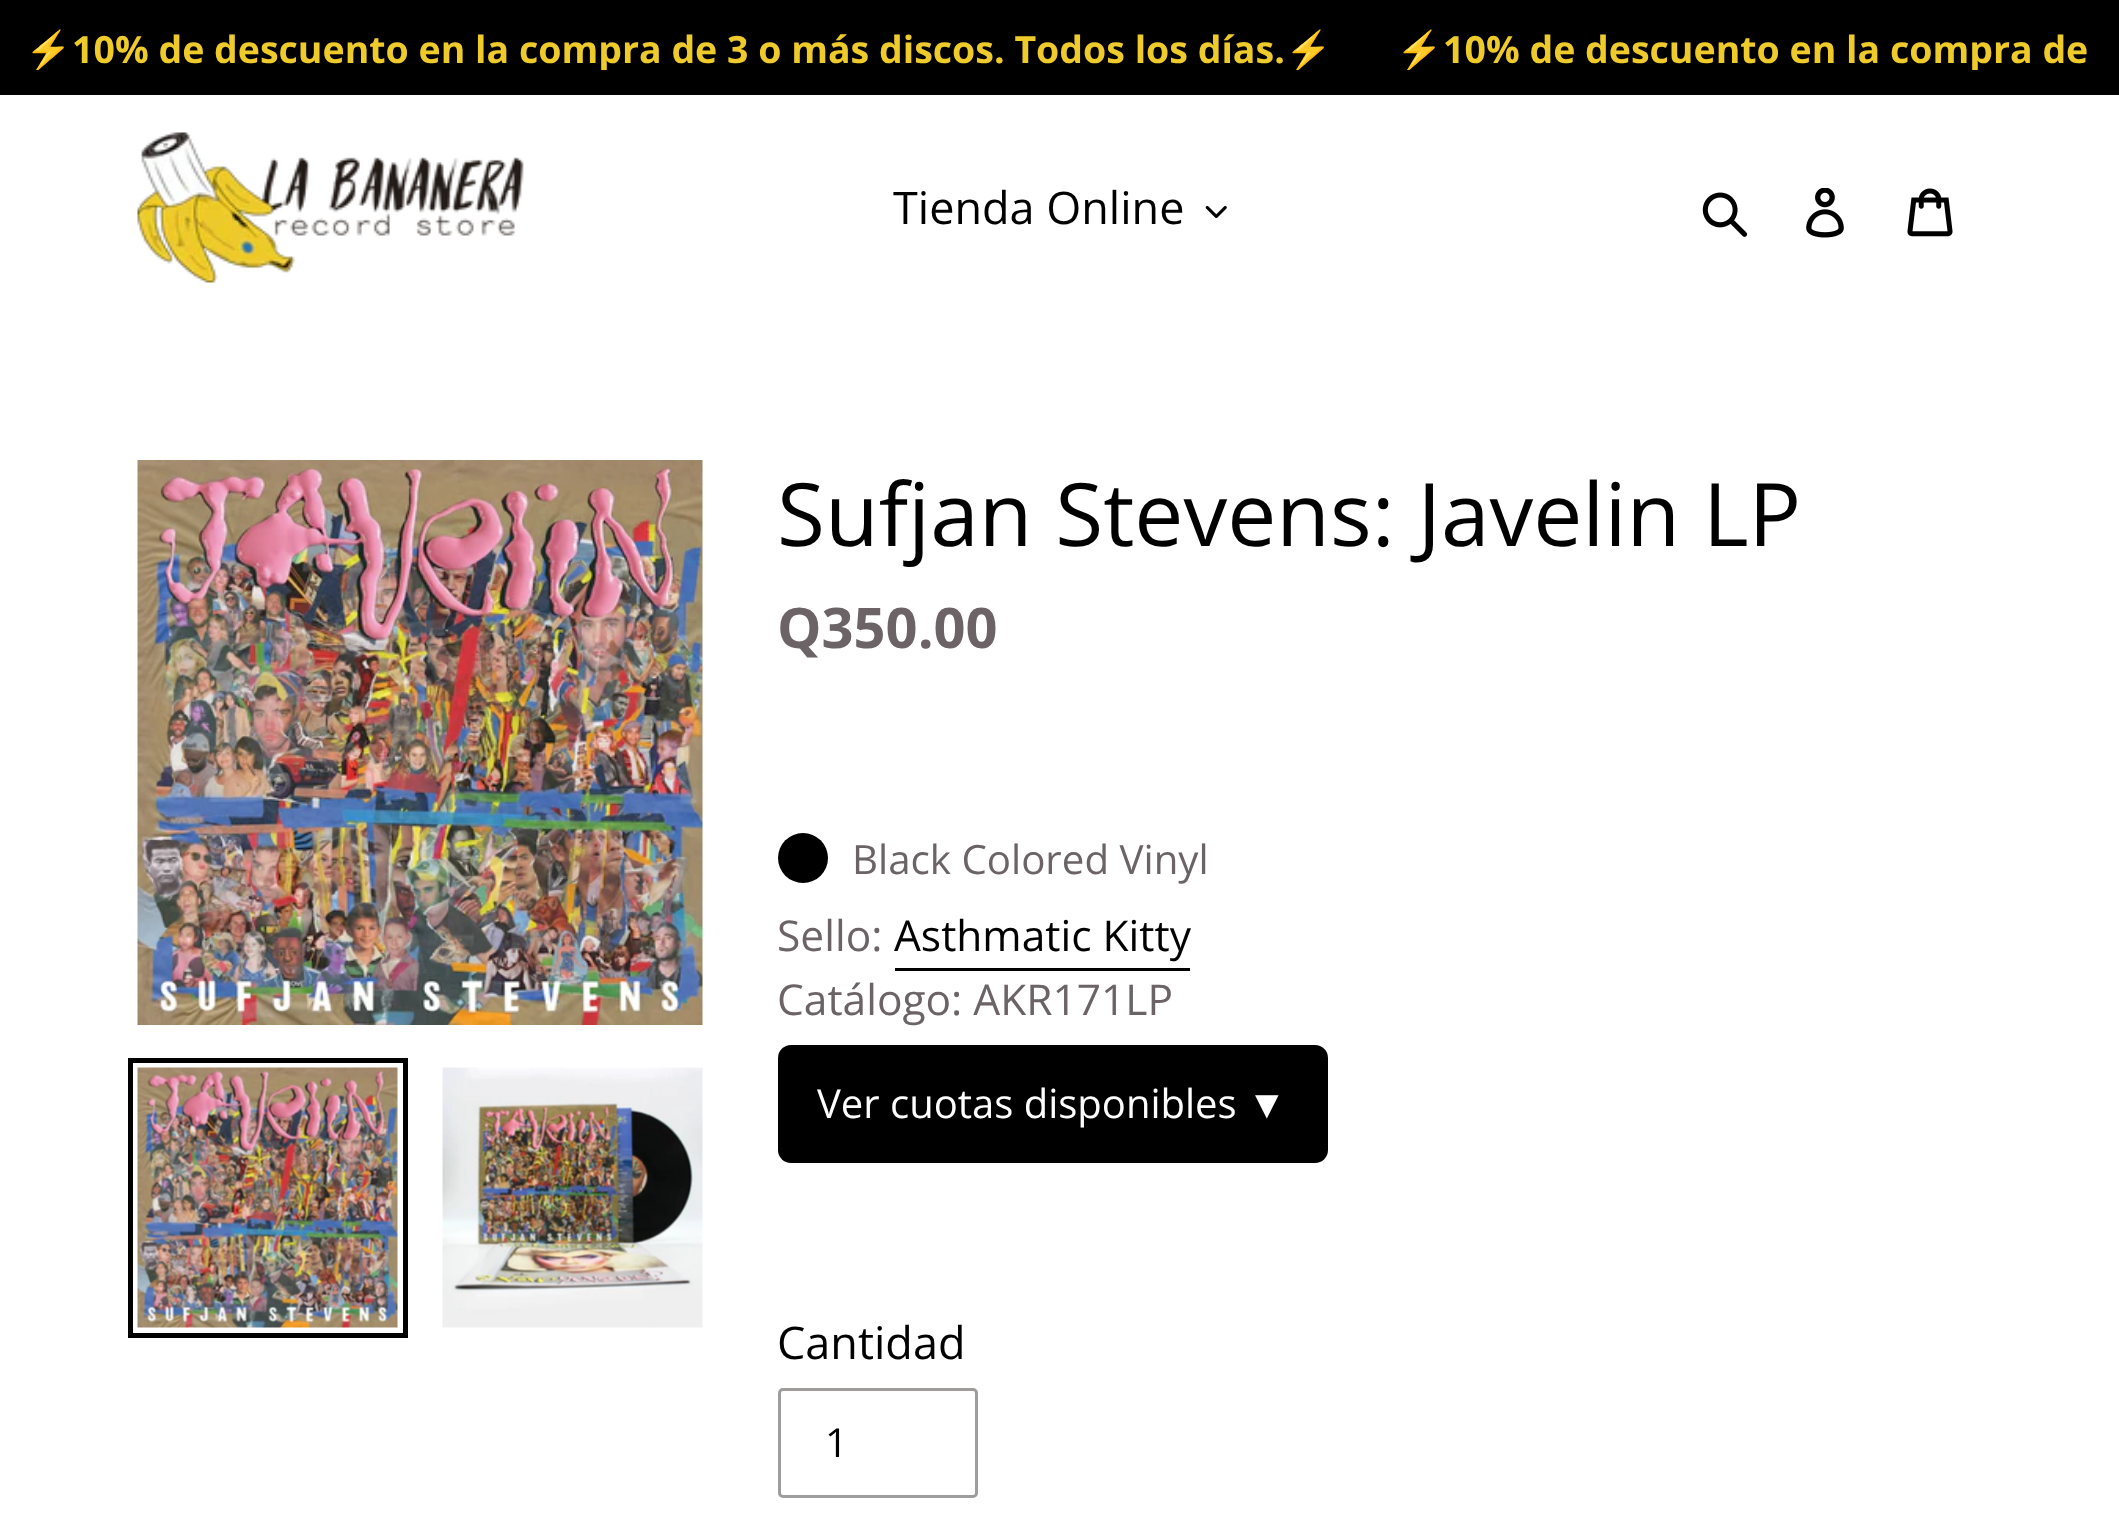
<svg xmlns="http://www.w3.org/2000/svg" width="2119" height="1534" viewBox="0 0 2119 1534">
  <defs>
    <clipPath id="clip1"><path d="M25 25h2070v45H25z"/></clipPath>
  </defs>
  <rect width="100%" height="100%" fill="#fff"/>
  <path d="M0 0h2119v95H0z" fill="#000"/>
  <image x="137" y="132" width="387" height="151" href="img/1.png"/>
  <image x="1205" y="206" width="22" height="12" href="img/2.png"/>
  <image x="1702" y="192" width="46" height="45" href="img/3.png"/>
  <image x="1806" y="188" width="38" height="50" href="img/4.png"/>
  <image x="1907" y="188" width="46" height="49" href="img/5.png"/>
  <image x="137" y="460" width="566" height="565" href="img/6.png"/>
  <path d="M130.5 1060.5h275v275H130.5z" fill="none" stroke="#000" stroke-width="5"/>
  <image x="137" y="1067" width="261" height="261" href="img/7.png"/>
  <image x="442" y="1067" width="261" height="261" href="img/8.png"/>
  <circle cx="803" cy="858" r="25" fill="#000"/>
  <path d="M895 968h295v3H895z" fill="#000"/>
  <rect x="778" y="1045" width="550" height="118" rx="13" fill="#000"/>
  <rect x="779.5" y="1389.5" width="197" height="107" rx="3.5" fill="none" stroke="#9f9c9c" stroke-width="3"/>
  <g clip-path="url(#clip1)">
    <text x="25" y="63" font-family="Noto Color Emoji" font-size="37.5" font-weight="bold" fill="#eeca2b">⚡</text>
    <text x="72" y="63" font-family="Open Sans" font-size="37.5" font-weight="bold" fill="#eeca2b">10% de descuento en la compra de 3 o más discos. Todos los días.</text>
    <g font-family="Noto Color Emoji" font-size="37.5" font-weight="bold" fill="#eeca2b">
      <text x="1285" y="63">⚡</text>
      <text x="1396" y="63">⚡</text>
    </g>
    <text x="1443" y="63" font-family="Open Sans" font-size="37.5" font-weight="bold" fill="#eeca2b">10% de descuento en la compra de</text>
  </g>
  <text x="893" y="224" font-family="Open Sans" font-size="45" fill="#000">Tienda Online</text>
  <text x="777" y="546" font-family="Open Sans" font-size="87.5" fill="#000">Sufjan Stevens: Javelin LP</text>
  <text x="777" y="648" font-family="Open Sans" font-size="56" font-weight="bold" fill="#6b6365">Q350.00</text>
  <text x="852" y="874" font-family="Open Sans" font-size="40.25" fill="#6b6365">Black Colored Vinyl</text>
  <text x="777" y="951" font-family="Open Sans" font-size="42.5" fill="#6b6365">Sello:</text>
  <text x="894" y="951" font-family="Open Sans" font-size="42.5" fill="#000">Asthmatic Kitty</text>
  <text x="777" y="1015" font-family="Open Sans" font-size="42.5" fill="#6b6365">Catálogo: AKR171LP</text>
  <text x="817" y="1118" font-family="Open Sans" font-size="40" fill="#fff">Ver cuotas disponibles</text>
  <text x="1247" y="1118" font-family="Liberation Sans" font-size="40" fill="#fff">▼</text>
  <text x="777" y="1359" font-family="Open Sans" font-size="45" fill="#000">Cantidad</text>
  <text x="825" y="1457" font-family="Open Sans" font-size="40" fill="#000">1</text>
</svg>
